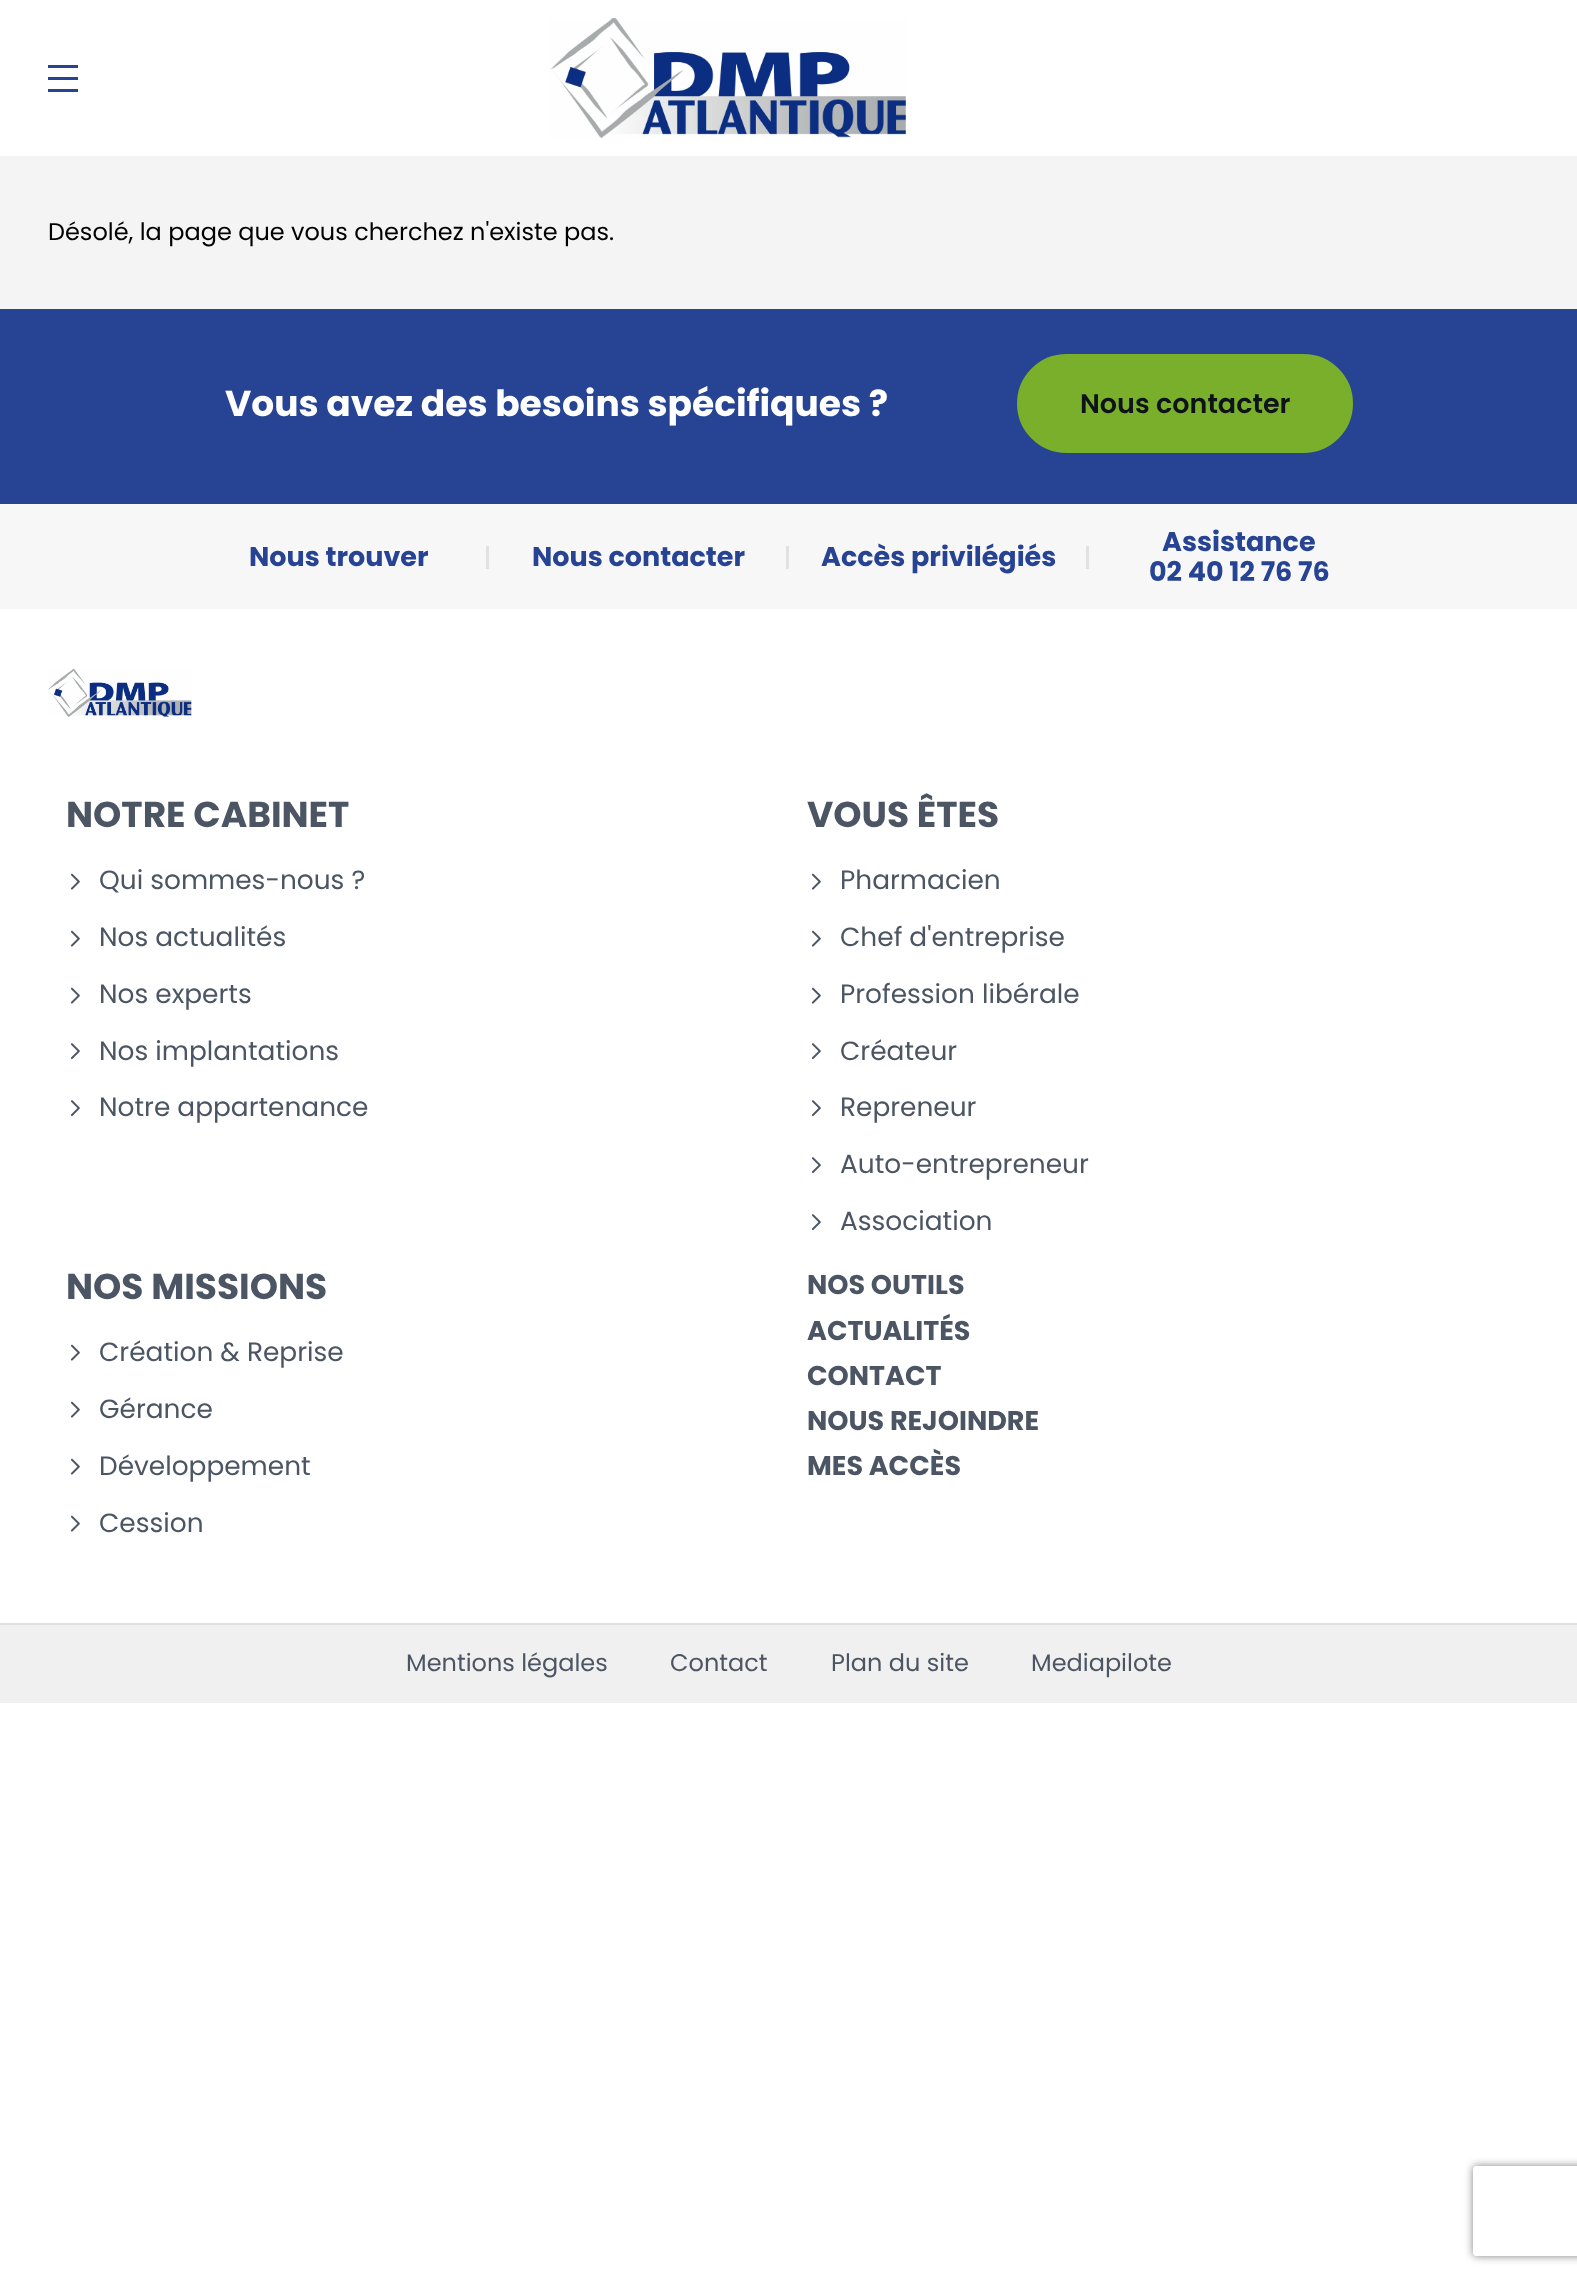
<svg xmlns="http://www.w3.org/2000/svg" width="1577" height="2276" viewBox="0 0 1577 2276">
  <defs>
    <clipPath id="clip1"><path d="M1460 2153H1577V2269H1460ZM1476 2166H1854C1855.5 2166 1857 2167.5 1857 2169V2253C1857 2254.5 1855.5 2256 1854 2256H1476C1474.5 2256 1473 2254.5 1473 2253V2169C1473 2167.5 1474.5 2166 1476 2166Z" clip-rule="evenodd"/></clipPath>
  </defs>
  <rect width="100%" height="100%" fill="#fff"/>
  <path d="M48 77h30v3H48z" fill="#274393"/>
  <path d="M48 65h30v3H48z" fill="#274393"/>
  <path d="M48 89h30v3H48z" fill="#274393"/>
  <image x="550" y="18" width="356" height="120" href="img/1.png"/>
  <path d="M0 156h1577v153H0z" fill="#f4f4f4"/>
  <path d="M0 309h1577v195H0z" fill="#274393"/>
  <rect x="1018.5" y="355.5" width="333" height="96" rx="48" fill="#79af2b" stroke="#79af2b" stroke-width="3"/>
  <path d="M0 506h1577v103H0z" fill="#f7f7f7"/>
  <path d="M0 504h1577v2H0z" fill="#f9f9f9"/>
  <path d="M486 546h3v23H486z" fill="#e1e1e1"/>
  <path d="M786 546h3v23H786z" fill="#e1e1e1"/>
  <path d="M1086 546h3v23H1086z" fill="#e1e1e1"/>
  <image x="48" y="669" width="144" height="48" href="img/2.png"/>
  <image x="70" y="873" width="10" height="17" href="img/3.png"/>
  <image x="70" y="930" width="10" height="17" href="img/3.png"/>
  <image x="70" y="987" width="10" height="17" href="img/3.png"/>
  <image x="70" y="1043" width="10" height="17" href="img/4.png"/>
  <image x="70" y="1100" width="10" height="17" href="img/4.png"/>
  <image x="811" y="873" width="10" height="17" href="img/3.png"/>
  <image x="811" y="930" width="10" height="17" href="img/3.png"/>
  <image x="811" y="987" width="10" height="17" href="img/3.png"/>
  <image x="811" y="1043" width="10" height="17" href="img/4.png"/>
  <image x="811" y="1100" width="10" height="17" href="img/4.png"/>
  <image x="811" y="1157" width="10" height="17" href="img/4.png"/>
  <image x="811" y="1214" width="10" height="17" href="img/4.png"/>
  <image x="70" y="1344" width="10" height="17" href="img/3.png"/>
  <image x="70" y="1401" width="10" height="17" href="img/3.png"/>
  <image x="70" y="1458" width="10" height="17" href="img/3.png"/>
  <image x="70" y="1515" width="10" height="17" href="img/3.png"/>
  <path d="M0 1625h1577v78H0z" fill="#f0f0f0"/>
  <path d="M0 1623h1577v2H0z" fill="#e0e0e0"/>
  <g clip-path="url(#clip1)">
    <rect x="1473" y="2166" width="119" height="90" rx="3" fill="#808080" filter="blur(4px)"/>
  </g>
  <text x="48" y="240" font-family="Poppins" font-size="24" fill="#000">Désolé, la page que vous cherchez n'existe pas.</text>
  <text x="225" y="416" font-family="Poppins" font-size="36" font-weight="bold" fill="#fff">Vous avez des besoins spécifiques ?</text>
  <text x="1080" y="413" font-family="Poppins" font-size="27" font-weight="600" fill="#0e131a">Nous contacter</text>
  <g font-family="Poppins" font-size="27" font-weight="bold" fill="#274393">
    <text x="249" y="566">Nous trouver</text>
    <text x="532" y="566">Nous contacter</text>
    <text x="821" y="566">Accès privilégiés</text>
    <text x="1162" y="551">Assistance</text>
    <text x="1149" y="581">02 40 12 76 76</text>
  </g>
  <text x="66" y="827" font-family="Poppins" font-size="36" font-weight="bold" fill="#4b5563">NOTRE CABINET</text>
  <g font-family="Poppins" font-size="26.4" fill="#4b5563">
    <text x="99" y="889">Qui sommes-nous ?</text>
    <text x="99" y="946">Nos actualités</text>
    <text x="99" y="1003">Nos experts</text>
    <text x="99" y="1060">Nos implantations</text>
    <text x="99" y="1116">Notre appartenance</text>
  </g>
  <text x="807" y="827" font-family="Poppins" font-size="36" font-weight="bold" fill="#4b5563">VOUS ÊTES</text>
  <g font-family="Poppins" font-size="26.4" fill="#4b5563">
    <text x="840" y="889">Pharmacien</text>
    <text x="840" y="946">Chef d'entreprise</text>
    <text x="840" y="1003">Profession libérale</text>
    <text x="840" y="1060">Créateur</text>
    <text x="840" y="1116">Repreneur</text>
    <text x="840" y="1173">Auto-entrepreneur</text>
    <text x="840" y="1230">Association</text>
  </g>
  <text x="66" y="1299" font-family="Poppins" font-size="36" font-weight="bold" fill="#4b5563">NOS MISSIONS</text>
  <g font-family="Poppins" font-size="26.4" fill="#4b5563">
    <text x="99" y="1361">Création &amp; Reprise</text>
    <text x="99" y="1418">Gérance</text>
    <text x="99" y="1475">Développement</text>
    <text x="99" y="1532">Cession</text>
  </g>
  <g font-family="Poppins" font-size="27" font-weight="bold" fill="#4b5563">
    <text x="807" y="1294">NOS OUTILS</text>
    <text x="807" y="1340">ACTUALITÉS</text>
    <text x="807" y="1385">CONTACT</text>
    <text x="807" y="1430">NOUS REJOINDRE</text>
    <text x="807" y="1475">MES ACCÈS</text>
  </g>
  <g font-family="Poppins" font-size="24" fill="#4b5563">
    <text x="406" y="1671">Mentions légales</text>
    <text x="670" y="1671">Contact</text>
    <text x="831" y="1671">Plan du site</text>
    <text x="1031" y="1671">Mediapilote</text>
  </g>
</svg>
